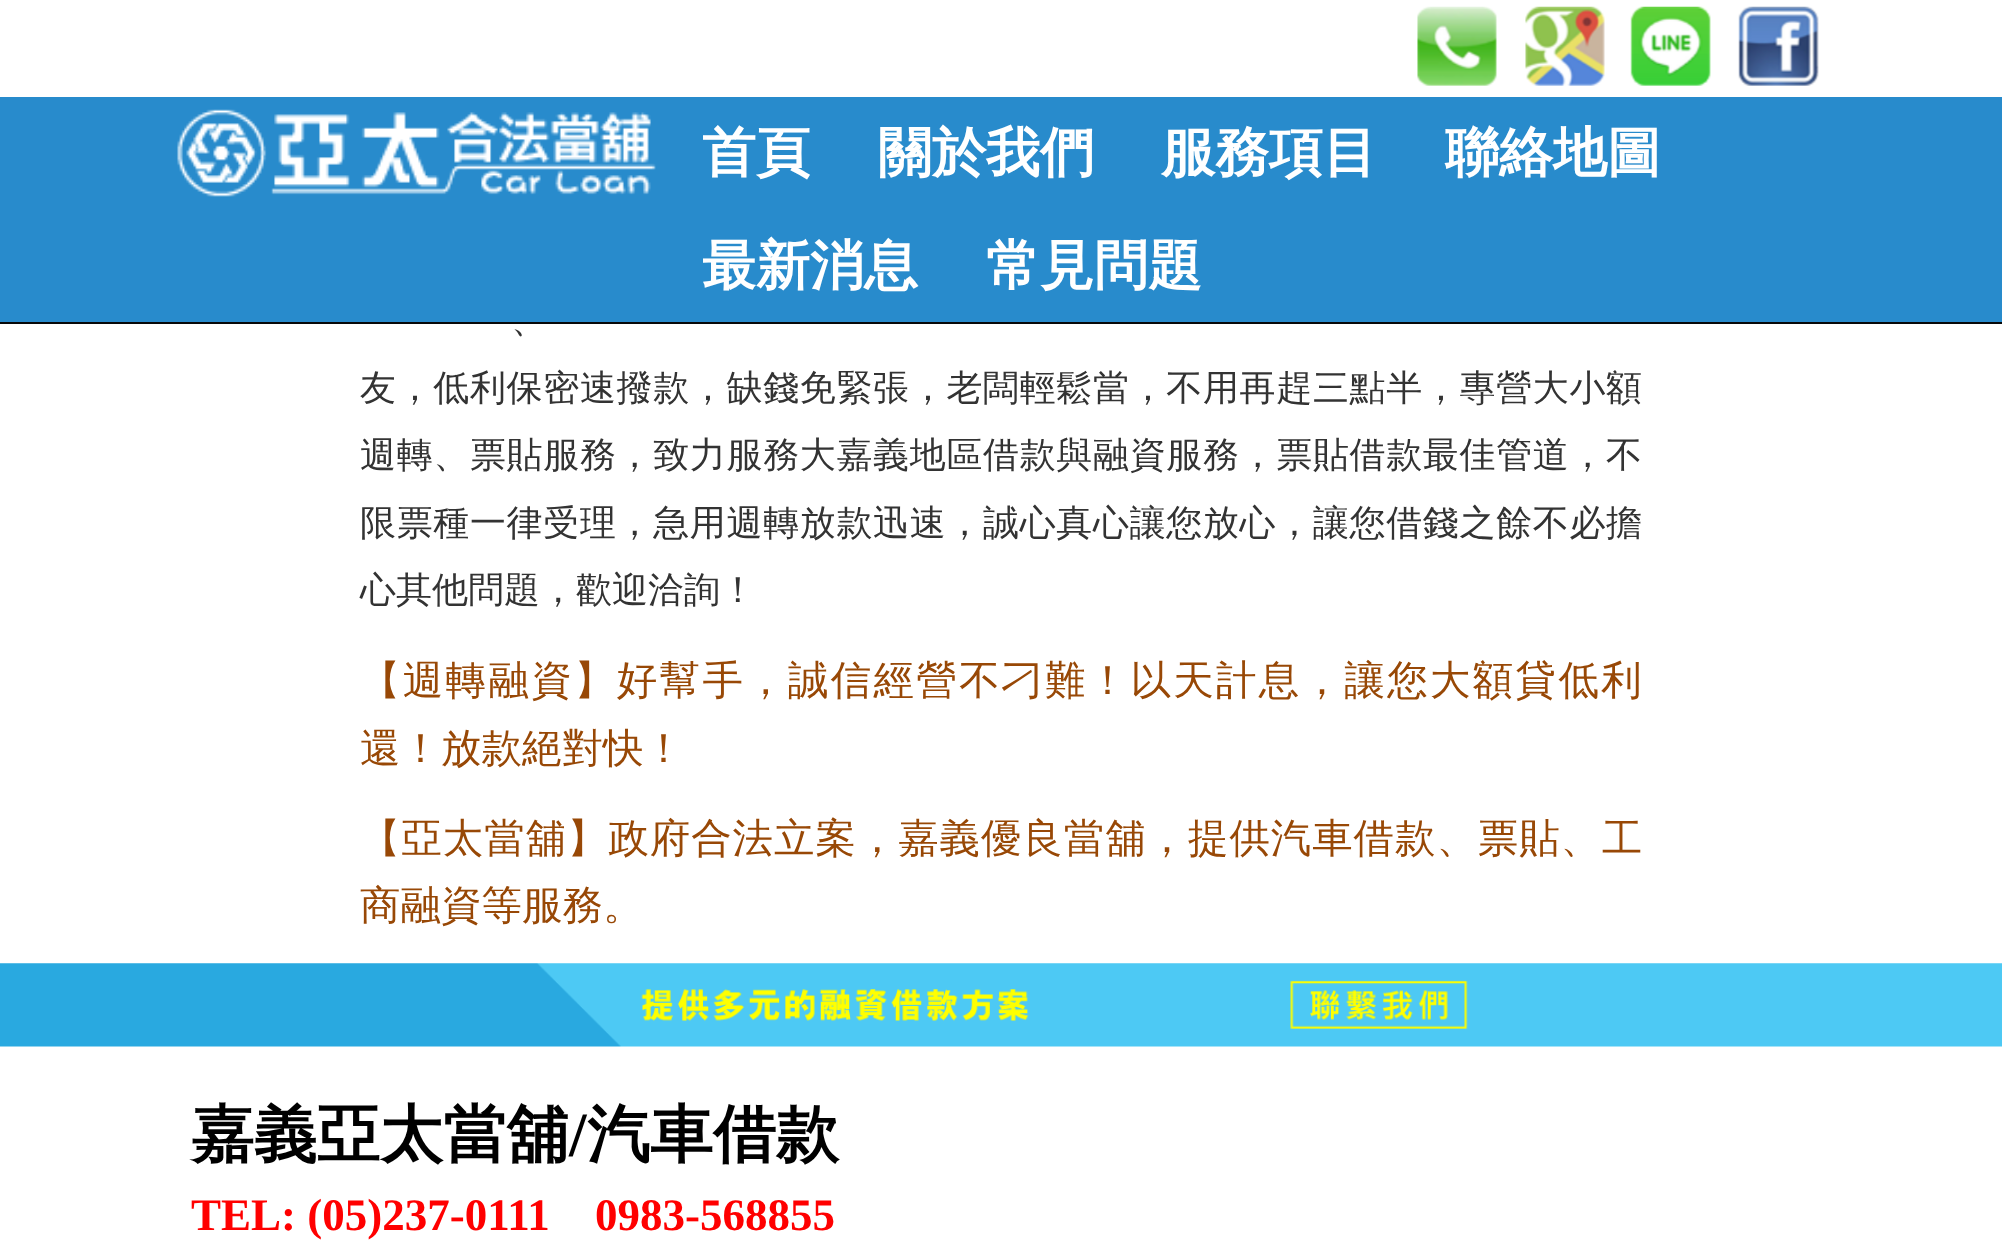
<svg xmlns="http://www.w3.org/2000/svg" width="2002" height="1255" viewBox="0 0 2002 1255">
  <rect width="100%" height="100%" fill="#fff"/>
  <image x="1417" y="6" width="80" height="80" href="img/1.png"/>
  <image x="1525" y="6" width="80" height="80" href="img/2.png"/>
  <image x="1630" y="6" width="81" height="80" href="img/3.png"/>
  <image x="1738" y="6" width="81" height="80" href="img/4.png"/>
  <path d="M0 97h2002v225H0z" fill="#288bcc"/>
  <path d="M0 322h2002v2H0z" fill="#080808"/>
  <image x="177" y="109" width="479" height="88" href="img/5.png"/>
  <image x="0" y="963" width="2002" height="84" href="img/6.png"/>
  <g font-family="WenQuanYi Zen Hei" font-size="54" font-weight="bold" fill="#fff">
    <text x="702" y="171">首頁</text>
    <text x="878" y="171">關於我們</text>
    <text x="1161" y="171">服務項目</text>
    <text x="1445" y="171">聯絡地圖</text>
    <text x="702" y="284">最新消息</text>
    <text x="986" y="284">常見問題</text>
  </g>
  <text x="511" y="332" font-family="WenQuanYi Zen Hei" font-size="36" font-weight="500" letter-spacing="2" fill="#333">、</text>
  <g font-family="WenQuanYi Zen Hei" font-size="36" font-weight="500" letter-spacing="0.65" fill="#333">
    <text x="360" y="400">友，低利保密速撥款，缺錢免緊張，老闆輕鬆當，不用再趕三點半，專營大小額</text>
    <text x="360" y="467">週轉、票貼服務，致力服務大嘉義地區借款與融資服務，票貼借款最佳管道，不</text>
    <text x="360" y="535">限票種一律受理，急用週轉放款迅速，誠心真心讓您放心，讓您借錢之餘不必擔</text>
  </g>
  <text x="360" y="602" font-family="WenQuanYi Zen Hei" font-size="36" font-weight="500" fill="#333">心其他問題，歡迎洽詢！</text>
  <text x="360" y="694" font-family="WenQuanYi Zen Hei" font-size="40.5" font-weight="500" letter-spacing="2.3" fill="#984806">【週轉融資】好幫手，誠信經營不刁難！以天計息，讓您大額貸低利</text>
  <text x="360" y="762" font-family="WenQuanYi Zen Hei" font-size="40.5" font-weight="500" fill="#984806">還！放款絕對快！</text>
  <text x="360" y="852" font-family="WenQuanYi Zen Hei" font-size="40.5" font-weight="500" letter-spacing="0.9" fill="#984806">【亞太當舖】政府合法立案，嘉義優良當舖，提供汽車借款、票貼、工</text>
  <text x="360" y="919" font-family="WenQuanYi Zen Hei" font-size="40.5" font-weight="500" fill="#984806">商融資等服務。</text>
  <text x="191" y="1156" font-family="WenQuanYi Zen Hei" font-size="63" font-weight="bold" fill="#000">嘉義亞太當舖</text>
  <text x="569" y="1156" font-family="Liberation Serif" font-size="63" font-weight="bold" fill="#000">/</text>
  <text x="587" y="1156" font-family="WenQuanYi Zen Hei" font-size="63" font-weight="bold" fill="#000">汽車借款</text>
  <g font-family="Liberation Serif" font-size="45" font-weight="bold" fill="#f00">
    <text x="191" y="1230">TEL: (05)237-0111</text>
    <text x="595" y="1230">0983-568855</text>
  </g>
</svg>
